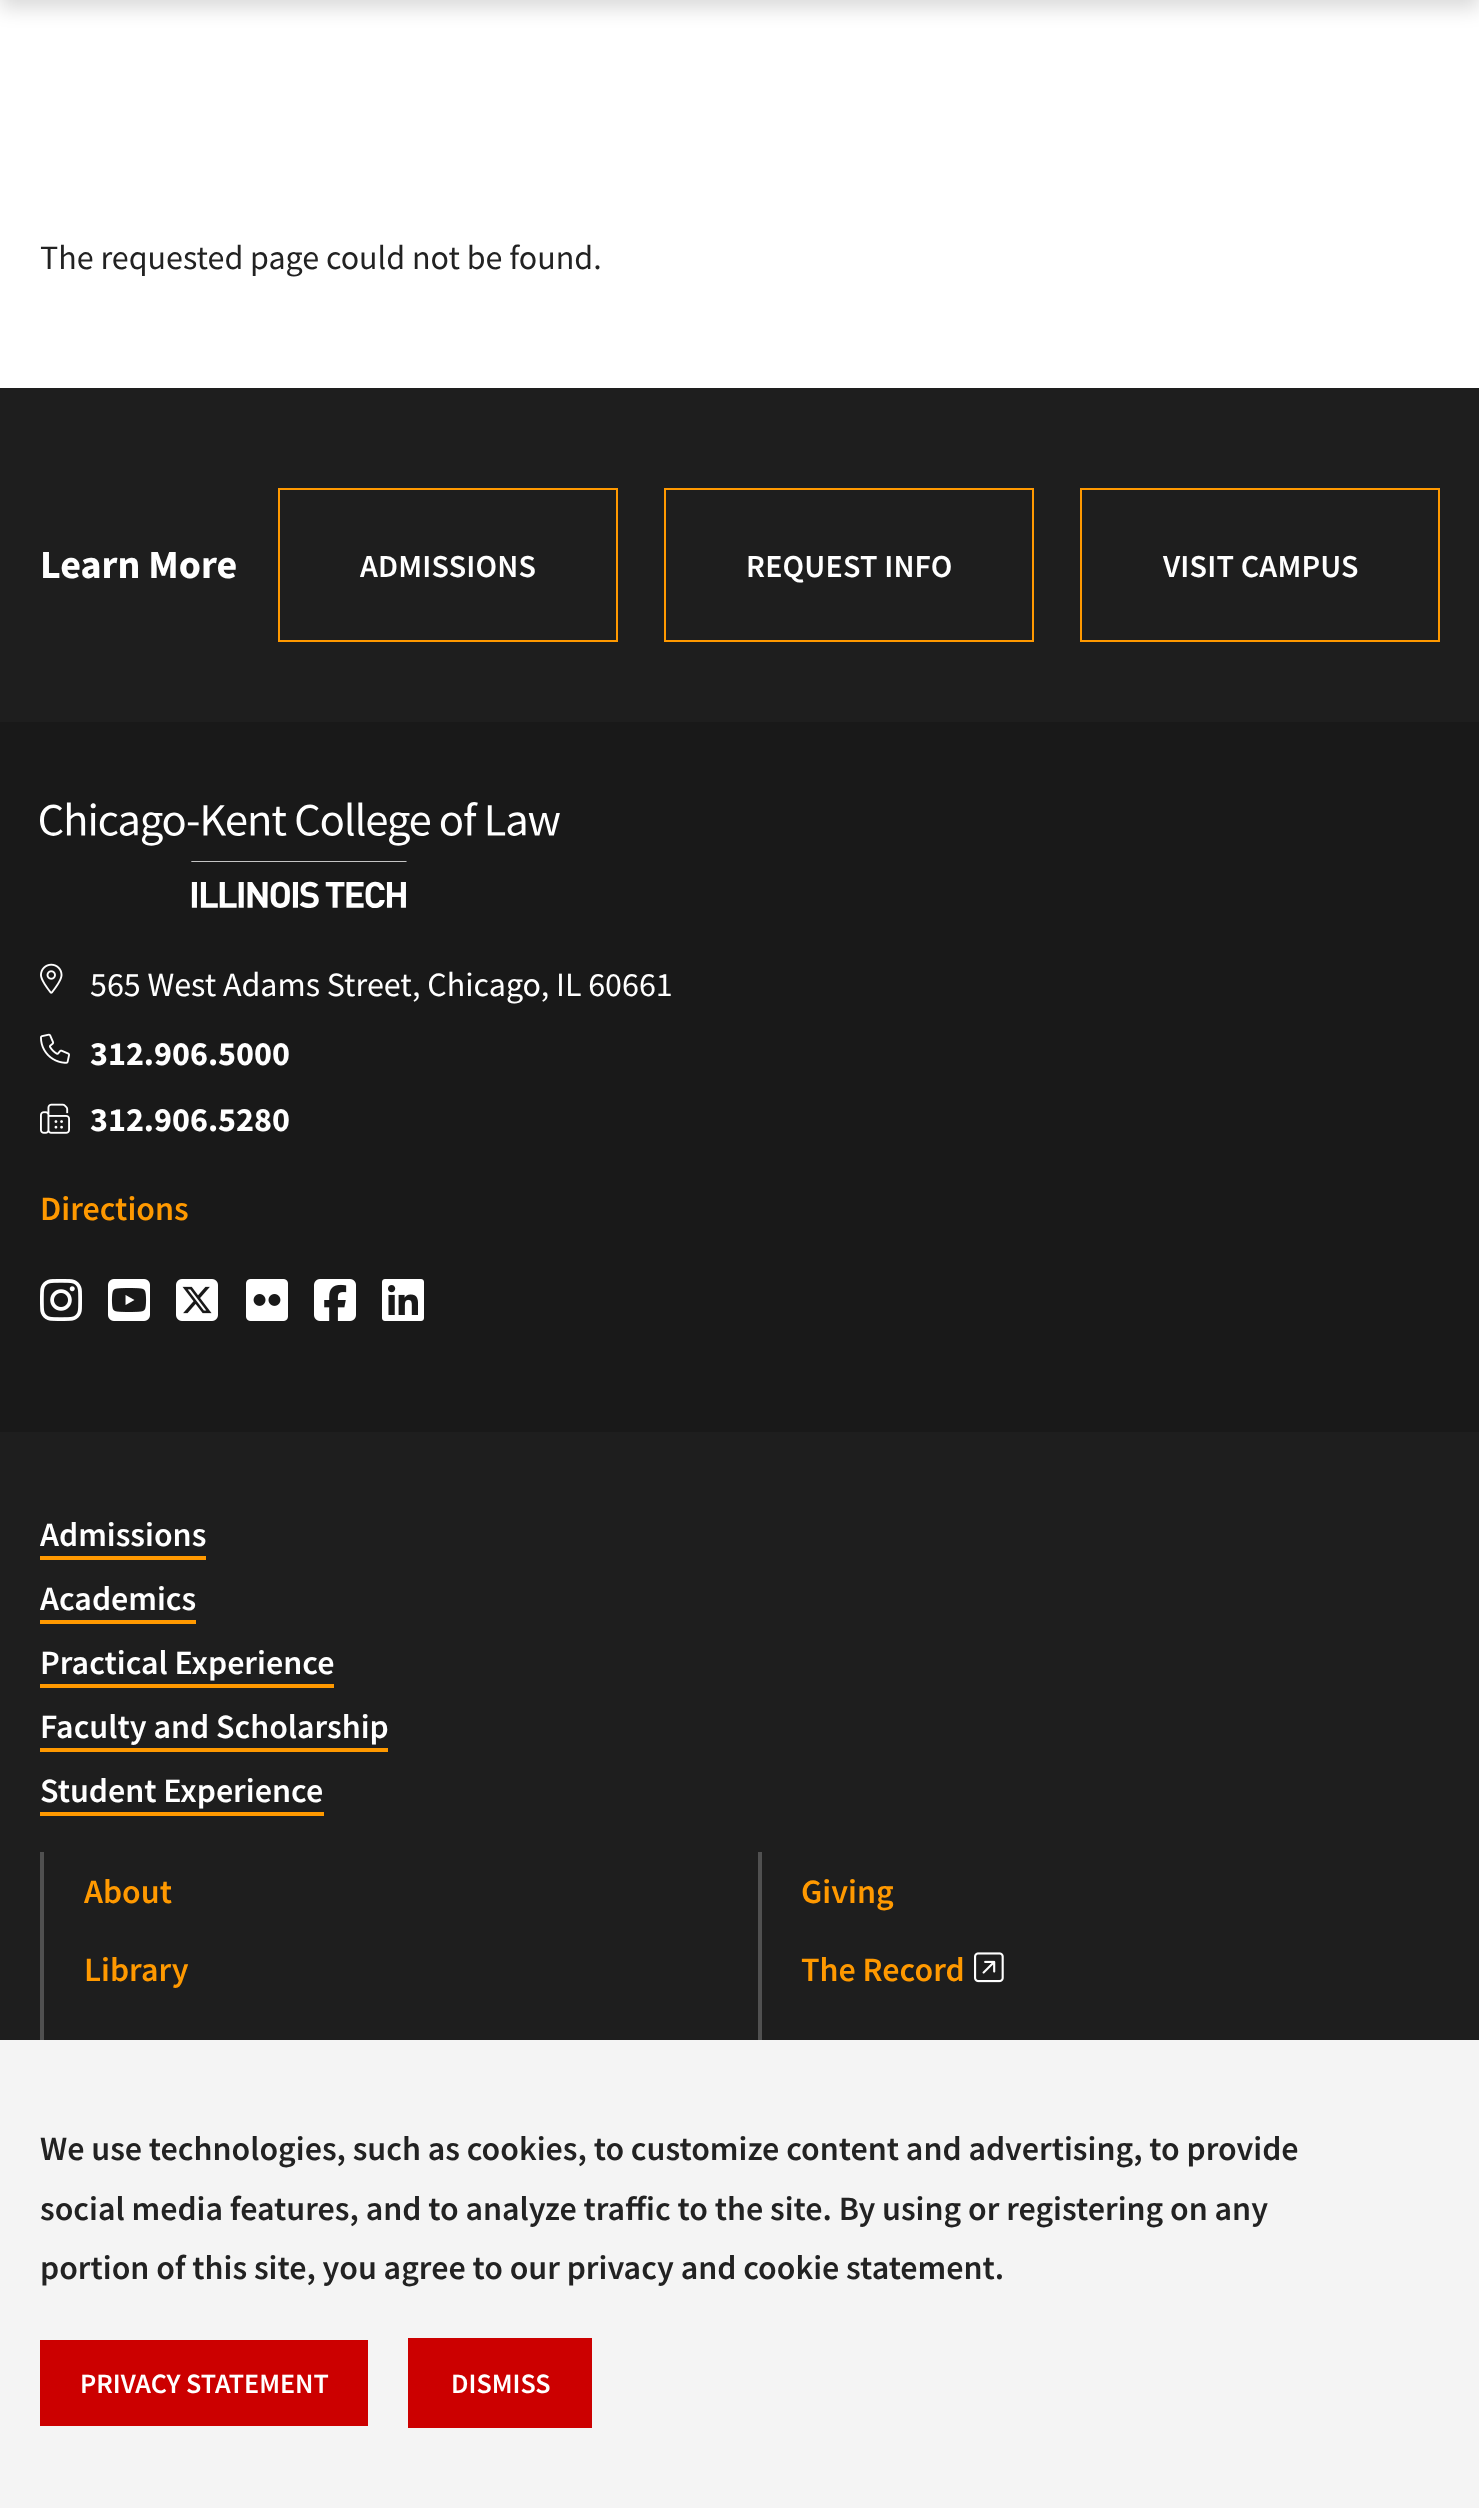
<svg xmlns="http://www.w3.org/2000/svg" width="1479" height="2508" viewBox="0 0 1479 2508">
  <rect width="100%" height="100%" fill="#fff"/>
  <path d="M0 -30h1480v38H0z" fill="#00000026" filter="blur(10px)"/>
  <path d="M0 388h1479v1652H0z" fill="#1e1e1e"/>
  <path d="M279 489h338v152H279z" fill="none" stroke="#f90" stroke-width="2"/>
  <path d="M665 489h368v152H665z" fill="none" stroke="#f90" stroke-width="2"/>
  <path d="M1081 489h358v152H1081z" fill="none" stroke="#f90" stroke-width="2"/>
  <path d="M0 722h1479v710H0z" fill="#191919"/>
  <image x="40" y="802" width="520" height="106" href="img/1.png"/>
  <image x="40" y="963" width="23" height="31" href="img/2.png"/>
  <image x="40" y="1033" width="30" height="31" href="img/3.png"/>
  <image x="40" y="1103" width="30" height="31" href="img/4.png"/>
  <image x="40" y="1279" width="42" height="42" href="img/5.png"/>
  <image x="108" y="1279" width="42" height="42" href="img/6.png"/>
  <image x="176" y="1279" width="42" height="42" href="img/7.png"/>
  <image x="246" y="1279" width="42" height="42" href="img/8.png"/>
  <image x="314" y="1279" width="42" height="42" href="img/9.png"/>
  <image x="382" y="1279" width="42" height="42" href="img/10.png"/>
  <path d="M40 1556h166v4H40z" fill="#f90"/>
  <path d="M40 1620h156v4H40z" fill="#f90"/>
  <path d="M40 1684h294v4H40z" fill="#f90"/>
  <path d="M40 1748h348v4H40z" fill="#f90"/>
  <path d="M40 1812h284v4H40z" fill="#f90"/>
  <path d="M40 1852h4v188H40z" fill="#505050"/>
  <path d="M758 1852h4v188H758z" fill="#505050"/>
  <image x="974" y="1952" width="30" height="31" href="img/11.png"/>
  <path d="M0 2040h1479v468H0z" fill="#f4f4f4"/>
  <path d="M40 2340h328v86H40z" fill="#c00"/>
  <path d="M408 2338h184v90H408z" fill="#c00"/>
  <text x="40" y="269" font-family="Source Sans Pro" font-size="34" fill="#222">The requested page could not be found.</text>
  <text x="40" y="578" font-family="Source Sans Pro" font-size="40" font-weight="bold" fill="#fff">Learn More</text>
  <g font-family="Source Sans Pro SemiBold" font-size="32" font-weight="600" letter-spacing="0.2" fill="#fff">
    <text x="360" y="577">ADMISSIONS</text>
    <text x="746" y="577">REQUEST INFO</text>
    <text x="1163" y="577">VISIT CAMPUS</text>
  </g>
  <text x="90" y="996" font-family="Source Sans Pro" font-size="34" fill="#fff">565 West Adams Street, Chicago, IL 60661</text>
  <g font-family="Source Sans Pro" font-size="34" font-weight="bold" fill="#fff">
    <text x="90" y="1065">312.906.5000</text>
    <text x="90" y="1131">312.906.5280</text>
  </g>
  <text x="40" y="1220" font-family="Source Sans Pro SemiBold" font-size="34" font-weight="600" fill="#f90">Directions</text>
  <g font-family="Source Sans Pro SemiBold" font-size="34" font-weight="600" fill="#fff">
    <text x="40" y="1546">Admissions</text>
    <text x="40" y="1610">Academics</text>
    <text x="40" y="1674">Practical Experience</text>
    <text x="40" y="1738">Faculty and Scholarship</text>
    <text x="40" y="1802">Student Experience</text>
  </g>
  <g font-family="Source Sans Pro SemiBold" font-size="34" font-weight="600" fill="#f90">
    <text x="84" y="1903">About</text>
    <text x="801" y="1903">Giving</text>
    <text x="84" y="1981">Library</text>
    <text x="801" y="1981">The Record</text>
  </g>
  <g font-family="Source Sans Pro SemiBold" font-size="34" font-weight="600" fill="#222">
    <text x="40" y="2160">We use technologies, such as cookies, to customize content and advertising, to provide</text>
    <text x="40" y="2220">social media features, and to analyze traffic to the site. By using or registering on any</text>
    <text x="40" y="2279">portion of this site, you agree to our privacy and cookie statement.</text>
  </g>
  <g font-family="Source Sans Pro SemiBold" font-size="28" font-weight="600" fill="#fff">
    <text x="80" y="2393">PRIVACY STATEMENT</text>
    <text x="451" y="2393">DISMISS</text>
  </g>
</svg>
